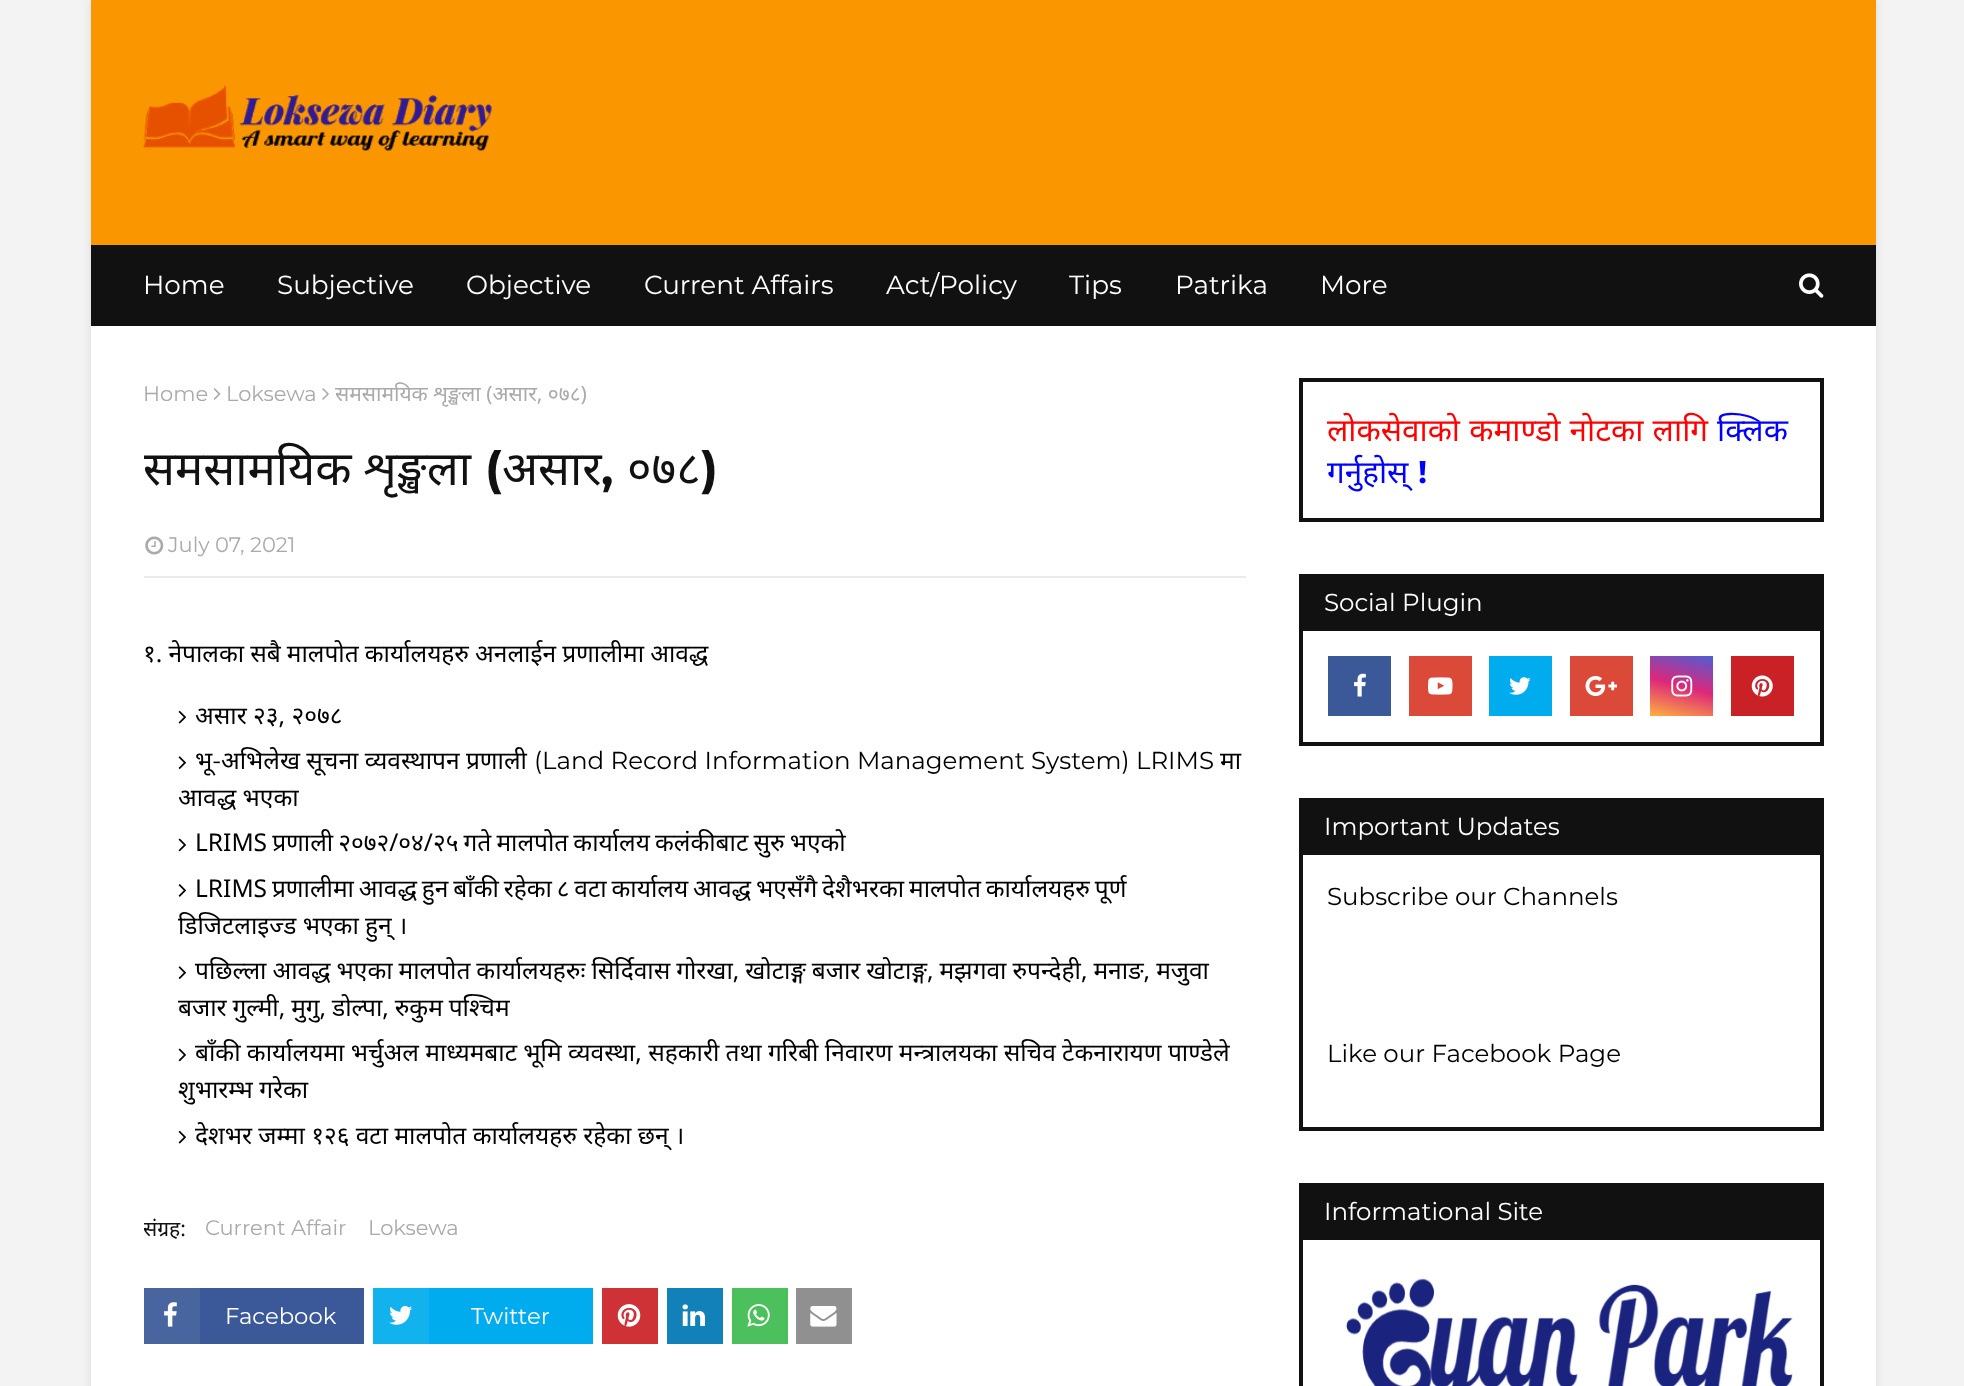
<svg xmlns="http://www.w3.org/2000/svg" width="1964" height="1386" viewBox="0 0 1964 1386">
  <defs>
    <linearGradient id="g1" gradientUnits="userSpaceOnUse" x1="1672" y1="722" x2="1691" y2="650"><stop offset="0" stop-color="#ffb13d"/><stop offset="0.5" stop-color="#dd277b"/><stop offset="1" stop-color="#4d5ed4"/></linearGradient>
    <clipPath id="clip1"><path d="M144 378h1102v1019H144z"/></clipPath>
    <clipPath id="clip2"><path d="M144 1215h1102v29H144z"/></clipPath>
  </defs>
  <rect width="100%" height="100%" fill="#f3f3f3"/>
  <path d="M91 0h1785v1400H91z" fill="#0000001a" filter="blur(4.5px)"/>
  <path d="M91 326h1785v1060H91z" fill="#fff"/>
  <path d="M91 0h1785v245H91z" fill="#fa9600"/>
  <image x="143" y="85" width="349" height="66" href="img/1.png"/>
  <path d="M91 245h1785v81H91z" fill="#111"/>
  <image x="1799" y="273" width="25" height="25" href="img/2.png"/>
  <image x="213" y="388" width="8" height="12" href="img/3.png"/>
  <image x="322" y="388" width="7" height="12" href="img/4.png"/>
  <path d="M144 576h1102v2H144z" fill="#ebebeb"/>
  <image x="145" y="536" width="19" height="19" href="img/5.png"/>
  <image x="178" y="710" width="8" height="14" href="img/6.png"/>
  <image x="178" y="756" width="8" height="13" href="img/7.png"/>
  <image x="178" y="838" width="8" height="14" href="img/8.png"/>
  <image x="178" y="884" width="8" height="13" href="img/9.png"/>
  <image x="178" y="966" width="8" height="13" href="img/7.png"/>
  <image x="178" y="1048" width="8" height="14" href="img/8.png"/>
  <image x="178" y="1130" width="8" height="14" href="img/6.png"/>
  <path d="M200 1288h164v56H200z" fill="#3b5999"/>
  <path d="M144 1288h56v56H144z" fill="#4965a0"/>
  <image x="164" y="1302" width="13" height="25" href="img/10.png"/>
  <path d="M429 1288h164v56H429z" fill="#00acee"/>
  <path d="M373 1288h56v56H373z" fill="#12b2ef"/>
  <image x="389" y="1306" width="24" height="19" href="img/11.png"/>
  <path d="M602 1288h56v56H602z" fill="#ce3136"/>
  <image x="617" y="1304" width="24" height="23" href="img/12.png"/>
  <path d="M667 1288h56v56H667z" fill="#1281ba"/>
  <image x="682" y="1304" width="23" height="22" href="img/13.png"/>
  <path d="M732 1288h56v56H732z" fill="#4cc05c"/>
  <image x="747" y="1304" width="23" height="23" href="img/14.png"/>
  <path d="M796 1288h56v56H796z" fill="#909090"/>
  <image x="810" y="1306" width="27" height="21" href="img/15.png"/>
  <path d="M1301 380h521v140H1301z" fill="none" stroke="#111" stroke-width="4"/>
  <path d="M1299 574h525v53H1299z" fill="#111"/>
  <path d="M1301 629h521v115H1301z" fill="none" stroke="#111" stroke-width="4"/>
  <path d="M1328 656h63v60H1328z" fill="#3b5999"/>
  <image x="1354" y="673" width="12" height="24" href="img/16.png"/>
  <path d="M1409 656h63v60H1409z" fill="#db4a39"/>
  <image x="1428" y="677" width="25" height="18" href="img/17.png"/>
  <path d="M1489 656h63v60H1489z" fill="#00acee"/>
  <image x="1509" y="677" width="22" height="18" href="img/18.png"/>
  <path d="M1570 656h63v60H1570z" fill="#db4a39"/>
  <image x="1585" y="676" width="32" height="20" href="img/19.png"/>
  <path d="M1650 656h63v60H1650z" fill="url(#g1)"/>
  <image x="1671" y="675" width="22" height="22" href="img/20.png"/>
  <path d="M1731 656h63v60H1731z" fill="#ca2127"/>
  <image x="1751" y="675" width="22" height="22" href="img/21.png"/>
  <path d="M1299 798h525v53H1299z" fill="#111"/>
  <path d="M1301 853h521v276H1301z" fill="none" stroke="#111" stroke-width="4"/>
  <path d="M1299 1183h525v53H1299z" fill="#111"/>
  <path d="M1301 1238h521v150H1301z" fill="none" stroke="#111" stroke-width="4"/>
  <image x="1346" y="1278" width="447" height="108" href="img/22.png"/>
  <g font-family="Montserrat" font-size="26.25" font-weight="100" fill="#fff">
    <text x="143" y="294">Home</text>
    <text x="277" y="294">Subjective</text>
    <text x="466" y="294">Objective</text>
    <text x="644" y="294">Current Affairs</text>
    <text x="886" y="294">Act/Policy</text>
    <text x="1069" y="294">Tips</text>
    <text x="1175" y="294">Patrika</text>
    <text x="1320" y="294">More</text>
  </g>
  <g font-family="Montserrat" font-size="21" font-weight="100" fill="#aaa">
    <text x="143" y="401">Home</text>
    <text x="226" y="401">Loksewa</text>
  </g>
  <text x="335" y="401" font-family="Noto Sans" font-size="21" fill="#aaa">समसामयिक शृङ्खला (असार, ०७८)</text>
  <g clip-path="url(#clip1)">
    <text x="143" y="485" font-family="Noto Sans" font-size="47.25" fill="#111">समसामयिक शृङ्खला</text>
  </g>
  <text x="485" y="485" font-family="Montserrat" font-size="47.25" font-weight="bold" fill="#111">(</text>
  <text x="502" y="485" font-family="Noto Sans" font-size="47.25" fill="#111">असार</text>
  <text x="601" y="485" font-family="Montserrat" font-size="47.25" font-weight="bold" fill="#111">,</text>
  <text x="627" y="485" font-family="Noto Sans" font-size="47.25" fill="#111">०७८</text>
  <text x="701" y="485" font-family="Montserrat" font-size="47.25" font-weight="bold" fill="#111">)</text>
  <text x="168" y="552" font-family="Montserrat" font-size="21" font-weight="100" fill="#aaa">July 07, 2021</text>
  <g font-family="Noto Sans" font-size="24.5" fill="#000">
    <text x="143" y="662" word-spacing="-0.25">१. नेपालका सबै मालपोत कार्यालयहरु अनलाईन प्रणालीमा आवद्ध</text>
    <text x="195" y="724">असार २३, २०७८</text>
    <text x="195" y="769">भू</text>
  </g>
  <text x="212" y="769" font-family="Montserrat" font-size="24.5" font-weight="100" fill="#000">-</text>
  <text x="221" y="769" font-family="Noto Sans" font-size="24.5" fill="#000">अभिलेख सूचना व्यवस्थापन प्रणाली</text>
  <text x="534" y="769" font-family="Montserrat" font-size="24.5" font-weight="100" fill="#000">(Land Record Information Management System) LRIMS</text>
  <g font-family="Noto Sans" font-size="24.5" fill="#000">
    <text x="1220" y="769">मा</text>
    <text x="178" y="806">आवद्ध भएका</text>
    <text x="195" y="851" word-spacing="-1.25">LRIMS प्रणाली २०७२/०४/२५ गते मालपोत कार्यालय कलंकीबाट सुरु भएको</text>
    <text x="195" y="897" word-spacing="-1.5">LRIMS प्रणालीमा आवद्ध हुन बाँकी रहेका ८ वटा कार्यालय आवद्ध भएसँगै देशैभरका मालपोत कार्यालयहरु पूर्ण</text>
    <text x="178" y="934">डिजिटलाइज्ड भएका हुन् ।</text>
    <text x="195" y="979" word-spacing="-0.4">पछिल्ला आवद्ध भएका मालपोत कार्यालयहरुः सिर्दिवास गोरखा, खोटाङ्ग बजार खोटाङ्ग, मझगवा रुपन्देही, मनाङ, मजुवा</text>
    <text x="178" y="1016" word-spacing="-0.5">बजार गुल्मी, मुगु, डोल्पा, रुकुम पश्चिम</text>
    <text x="195" y="1061">बाँकी कार्यालयमा भर्चुअल माध्यमबाट भूमि व्यवस्था, सहकारी तथा गरिबी निवारण मन्त्रालयका सचिव टेकनारायण पाण्डेले</text>
    <text x="178" y="1098">शुभारम्भ गरेका</text>
    <text x="195" y="1144">देशभर जम्मा १२६ वटा मालपोत कार्यालयहरु रहेका छन् ।</text>
  </g>
  <g clip-path="url(#clip2)">
    <text x="143" y="1236" font-family="Noto Sans" font-size="21" fill="#111">संग्रह:</text>
  </g>
  <g font-family="Montserrat" font-size="21" font-weight="100" fill="#aaa">
    <text x="205" y="1235">Current Affair</text>
    <text x="368" y="1235">Loksewa</text>
  </g>
  <g font-family="Montserrat" font-size="22.75" font-weight="100" fill="#fff">
    <text x="225" y="1324">Facebook</text>
    <text x="471" y="1324">Twitter</text>
  </g>
  <text x="1327" y="441" word-spacing="1" font-family="Noto Sans" font-size="31.5" fill="#f00">लोकसेवाको कमाण्डो नोटका लागि</text>
  <g font-family="Noto Sans" font-size="31.5" fill="#00f">
    <text x="1717" y="441">क्लिक</text>
    <text x="1327" y="483">गर्नुहोस्</text>
  </g>
  <text x="1418" y="483" font-family="Montserrat" font-size="31.5" font-weight="bold" fill="#00f">!</text>
  <g font-family="Montserrat" font-size="24.5" font-weight="100" fill="#fff">
    <text x="1324" y="611">Social Plugin</text>
    <text x="1324" y="835">Important Updates</text>
  </g>
  <g font-family="Montserrat" font-size="24.5" font-weight="100" fill="#000">
    <text x="1327" y="905">Subscribe our Channels</text>
    <text x="1327" y="1062">Like our Facebook Page</text>
  </g>
  <text x="1324" y="1220" font-family="Montserrat" font-size="24.5" font-weight="100" fill="#fff">Informational Site</text>
</svg>
